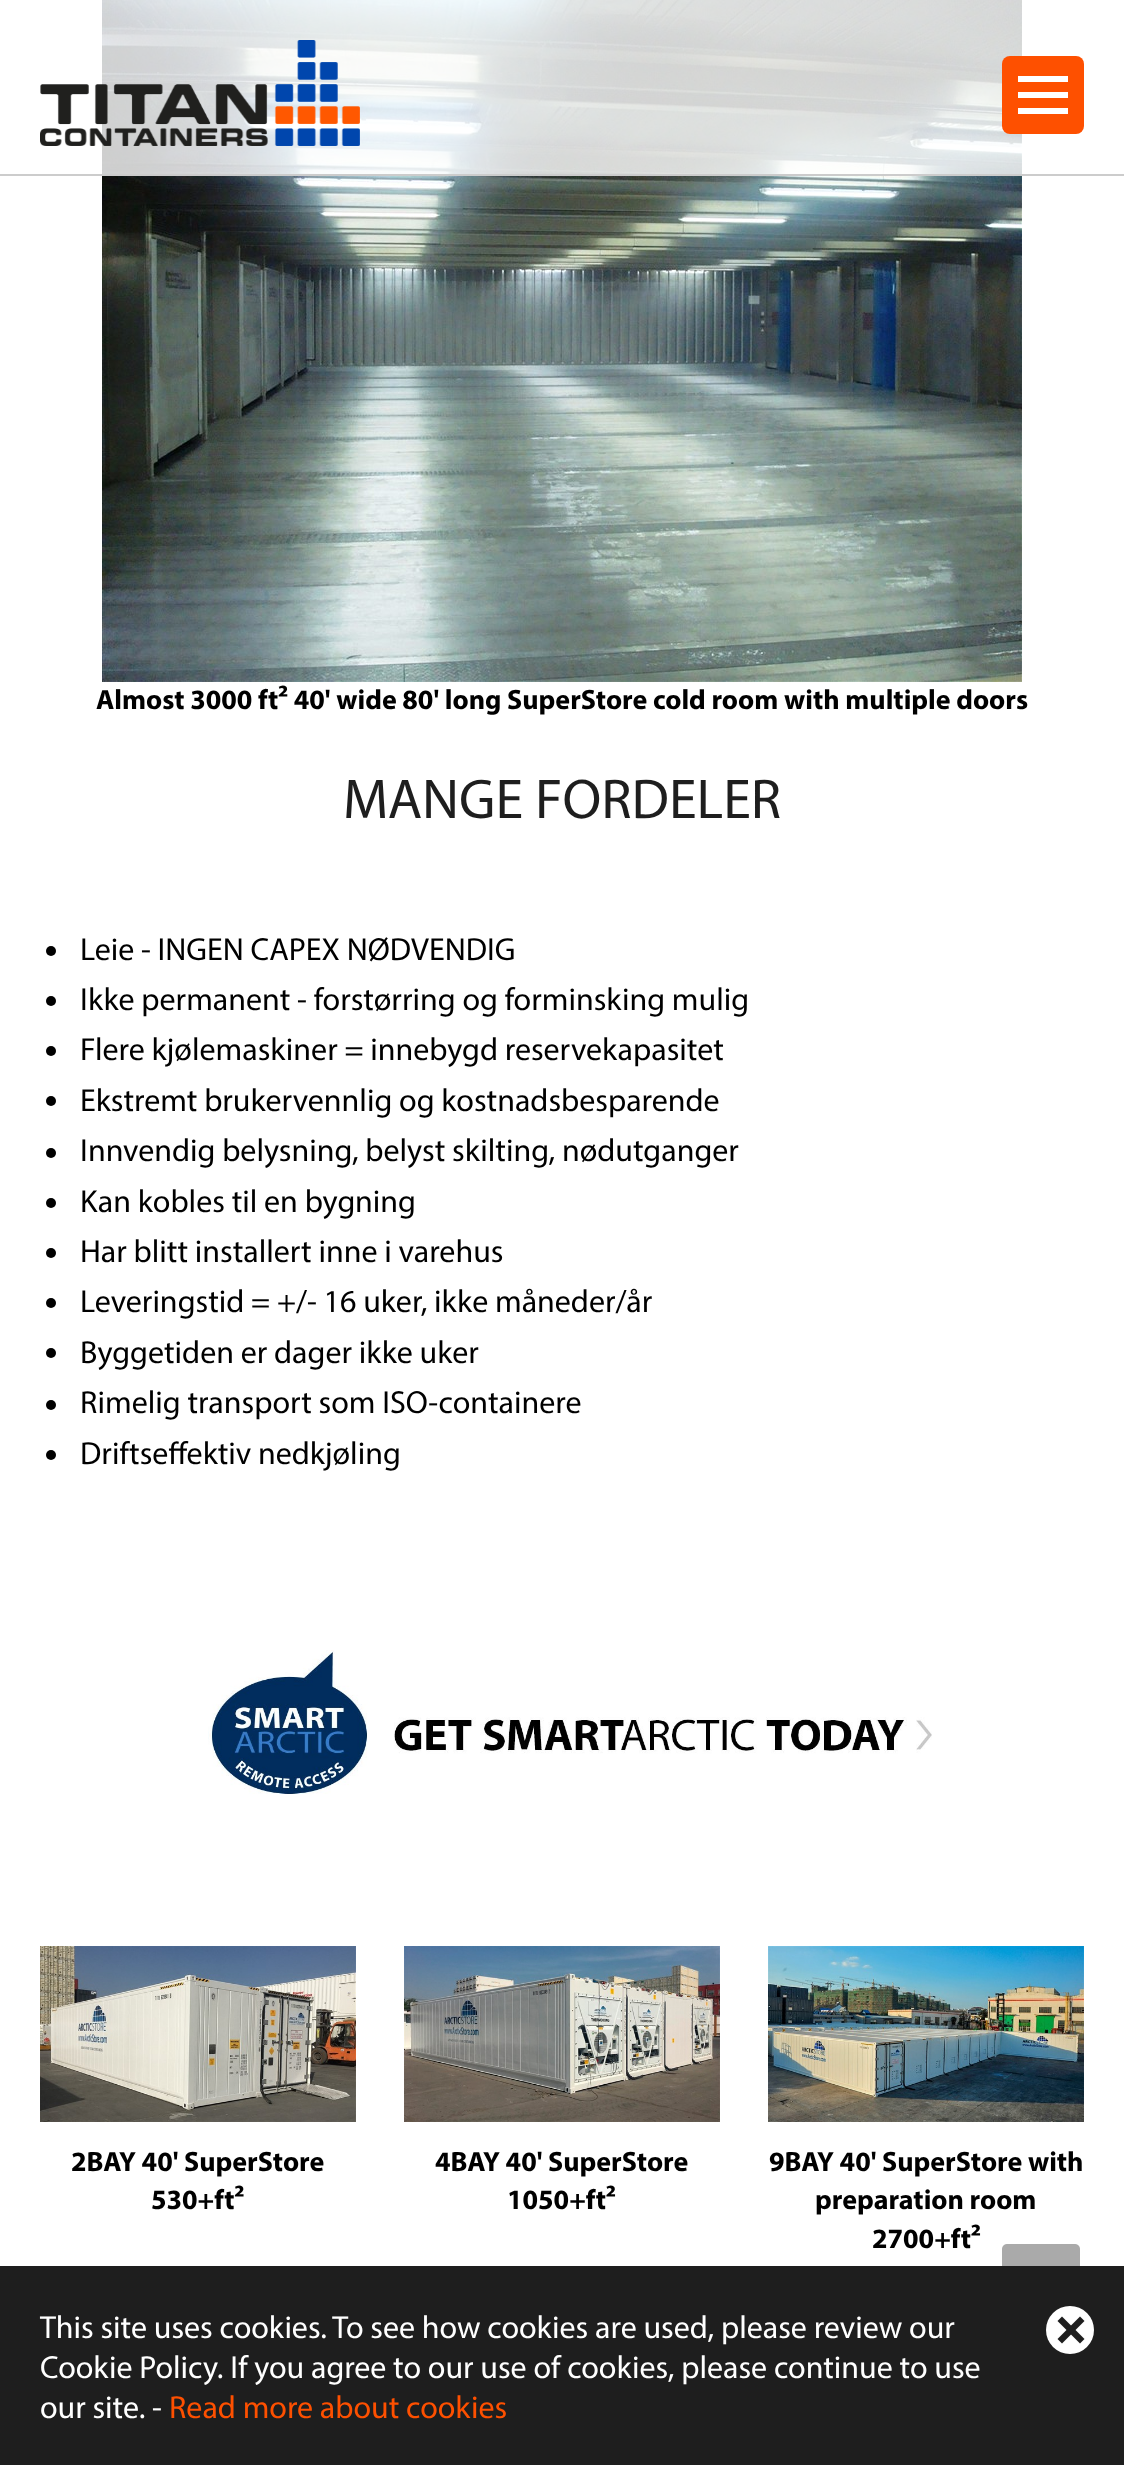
<svg xmlns="http://www.w3.org/2000/svg" width="1124" height="2465" viewBox="0 0 1124 2465">
  <rect width="100%" height="100%" fill="#fff"/>
  <image x="102" y="0" width="920" height="682" href="img/2.png"/>
  <path d="M102 0h920v174H102z" fill="#ffffffcc"/>
  <path d="M0 174h1124v2H0z" fill="#ccc"/>
  <image x="40" y="40" width="320" height="106" href="img/1.png"/>
  <rect x="1002" y="56" width="82" height="78" rx="8" fill="#fe5000"/>
  <path d="M1018 76h50v6H1018z" fill="#fff"/>
  <path d="M1018 92h50v6H1018z" fill="#fff"/>
  <path d="M1018 108h50v6H1018z" fill="#fff"/>
  <circle cx="51" cy="951" r="5" fill="#000"/>
  <circle cx="51" cy="1001" r="5" fill="#000"/>
  <circle cx="51" cy="1051" r="5" fill="#000"/>
  <circle cx="51" cy="1101" r="5" fill="#000"/>
  <circle cx="51" cy="1153" r="5" fill="#000"/>
  <circle cx="51" cy="1203" r="5" fill="#000"/>
  <circle cx="51" cy="1253" r="5" fill="#000"/>
  <circle cx="51" cy="1303" r="5" fill="#000"/>
  <circle cx="51" cy="1353" r="5" fill="#000"/>
  <circle cx="51" cy="1405" r="5" fill="#000"/>
  <circle cx="51" cy="1455" r="5" fill="#000"/>
  <image x="208" y="1650" width="724" height="144" href="img/3.png"/>
  <image x="40" y="1946" width="316" height="176" href="img/4.png"/>
  <image x="404" y="1946" width="316" height="176" href="img/5.png"/>
  <image x="768" y="1946" width="316" height="176" href="img/6.png"/>
  <image x="998" y="2244" width="86" height="22" href="img/7.png"/>
  <path d="M0 2266h1124v199H0z" fill="#1e1e1e"/>
  <circle cx="1070" cy="2330" r="24" fill="#fff"/>
  <path d="M1080 2316.5L1084.5 2321L1062 2343.5L1057.5 2339Z" fill="#1e1e1e"/>
  <path d="M1057.5 2321L1062 2316.5L1084.5 2339L1080 2343.5Z" fill="#1e1e1e"/>
  <text x="96" y="709" font-family="Myriad" font-size="28" font-weight="bold" fill="#000">Almost 3000 ft² 40' wide 80' long SuperStore cold room with multiple doors</text>
  <text x="343" y="818" font-family="Myriad" font-size="56.25" fill="#1e1e1e">MANGE FORDELER</text>
  <g font-family="Myriad" font-size="32" fill="#000">
    <text x="80" y="960">Leie - INGEN CAPEX NØDVENDIG</text>
    <text x="80" y="1010">Ikke permanent - forstørring og forminsking mulig</text>
    <text x="80" y="1060">Flere kjølemaskiner = innebygd reservekapasitet</text>
    <text x="80" y="1111">Ekstremt brukervennlig og kostnadsbesparende</text>
    <text x="80" y="1161">Innvendig belysning, belyst skilting, nødutganger</text>
    <text x="80" y="1212">Kan kobles til en bygning</text>
    <text x="80" y="1262">Har blitt installert inne i varehus</text>
    <text x="80" y="1312">Leveringstid = +/- 16 uker, ikke måneder/år</text>
    <text x="80" y="1363">Byggetiden er dager ikke uker</text>
    <text x="80" y="1413">Rimelig transport som ISO-containere</text>
    <text x="80" y="1464">Driftseffektiv nedkjøling</text>
  </g>
  <g font-family="Myriad" font-size="28" font-weight="bold" fill="#000">
    <text x="71" y="2171">2BAY 40' SuperStore</text>
    <text x="151" y="2209">530+ft²</text>
    <text x="435" y="2171">4BAY 40' SuperStore</text>
    <text x="507" y="2209">1050+ft²</text>
    <text x="769" y="2171">9BAY 40' SuperStore with</text>
    <text x="815" y="2209">preparation room</text>
    <text x="872" y="2248">2700+ft²</text>
  </g>
  <g font-family="Myriad" font-size="32" fill="#fff">
    <text x="40" y="2338">This site uses cookies. To see how cookies are used, please review our</text>
    <text x="40" y="2378">Cookie Policy. If you agree to our use of cookies, please continue to use</text>
    <text x="40" y="2418">our site. -</text>
  </g>
  <text x="169" y="2418" font-family="Myriad" font-size="32" fill="#fe5000">Read more about cookies</text>
</svg>
